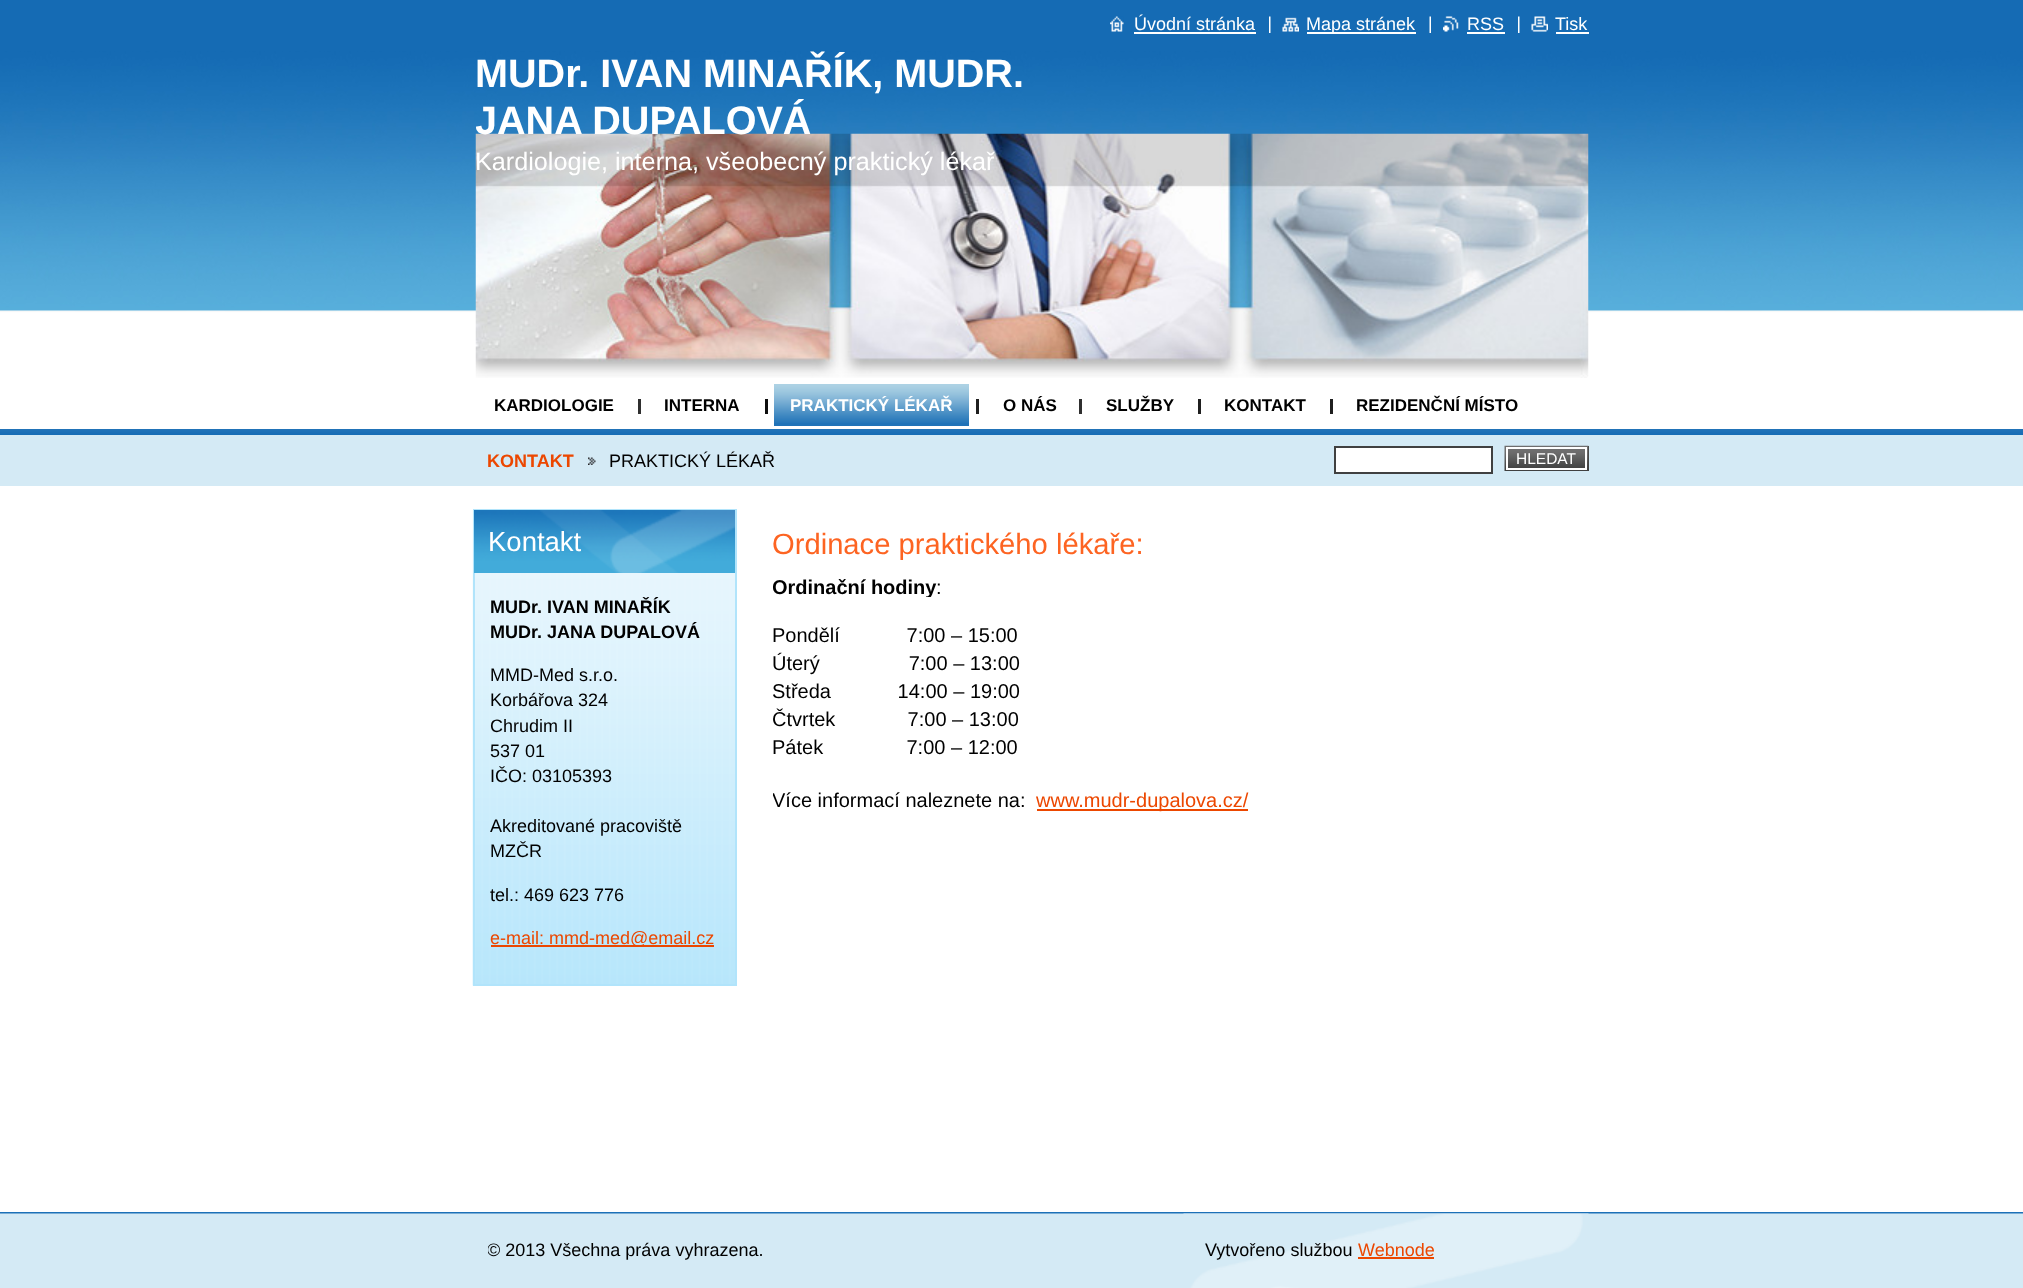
<svg xmlns="http://www.w3.org/2000/svg" width="2023" height="1288" viewBox="0 0 2023 1288">
  <defs>
    <clipPath id="clip1"><path d="M476 51h651v93H476z"/></clipPath>
    <clipPath id="clip2"><path d="M773 579h816v18H773z"/></clipPath>
    <clipPath id="clip3"><path d="M773 707h816v27H773z"/></clipPath>
    <clipPath id="clip4"><path d="M773 788h816v28H773z"/></clipPath>
    <clipPath id="clip5"><path d="M488 1239h705v23H488z"/></clipPath>
  </defs>
  <rect width="100%" height="100%" fill="#fff"/>
  <path d="M0 0h2023v51H0z" fill="#156bb4"/>
  <image x="1110" y="16" width="14" height="16" href="img/1.png"/>
  <path d="M1134 32h122v2H1134z" fill="#fff"/>
  <image x="1269" y="16" width="2" height="17" href="img/2.png"/>
  <image x="1282" y="17" width="17" height="15" href="img/3.png"/>
  <path d="M1307 32h109v2H1307z" fill="#fff"/>
  <image x="1429" y="16" width="2" height="17" href="img/4.png"/>
  <image x="1443" y="16" width="16" height="16" href="img/5.png"/>
  <path d="M1467 32h38v2H1467z" fill="#fff"/>
  <image x="1518" y="16" width="2" height="17" href="img/2.png"/>
  <image x="1531" y="16" width="17" height="16" href="img/6.png"/>
  <path d="M1556 32h33v2H1556z" fill="#fff"/>
  <image x="0" y="51" width="2023" height="330" href="img/7.png"/>
  <image x="475" y="133" width="1114" height="245" href="img/8.png"/>
  <path d="M638 399h3v15H638z" fill="#2f2f2f"/>
  <path d="M765 399h3v15H765z" fill="#0f0f0f"/>
  <path d="M774 423h195v3H774z" fill="#2173b8"/>
  <image x="774" y="384" width="195" height="39" href="img/9.png"/>
  <path d="M976 399h3v15H976z" fill="#1f1f1f"/>
  <path d="M1079 399h3v15H1079z" fill="#2f2f2f"/>
  <path d="M1198 399h3v15H1198z" fill="#1f1f1f"/>
  <path d="M1330 399h3v15H1330z" fill="#1f1f1f"/>
  <path d="M0 435h2023v51H0z" fill="#d4eaf5"/>
  <image x="0" y="429" width="2023" height="6" href="img/10.png"/>
  <image x="588" y="457" width="8" height="8" href="img/11.png"/>
  <path d="M1335 447h157v26H1335z" fill="#fff" stroke="#404040" stroke-width="2"/>
  <path d="M1588 446h1v25H1588z" fill="#404040"/>
  <image x="1504" y="445" width="85" height="26" href="img/12.png"/>
  <image x="1508" y="449" width="77" height="19" href="img/13.png"/>
  <path d="M1507 448h79v21H1507z" fill="none" stroke="#fff" stroke-width="2"/>
  <image x="472" y="510" width="263" height="476" href="img/14.png"/>
  <path d="M474 510h262v475H474z" fill="none" stroke="#b1e4fb" stroke-width="2"/>
  <image x="474" y="510" width="261" height="63" href="img/15.png"/>
  <path d="M491 945h223v2H491z" fill="#ec4700"/>
  <path d="M1037 809h211v2H1037z" fill="#ec4700"/>
  <path d="M0 1213h2023v75H0z" fill="#d4eaf5"/>
  <image x="0" y="1212" width="2023" height="2" href="img/16.png"/>
  <image x="1183" y="1213" width="406" height="75" href="img/17.png"/>
  <path d="M1358 1257h76v2H1358z" fill="#ec4700"/>
  <g font-family="Liberation Sans" font-size="18" fill="#fff">
    <text x="1134" y="30">Úvodní stránka</text>
    <text x="1306" y="30">Mapa stránek</text>
    <text x="1467" y="30">RSS</text>
    <text x="1555" y="30">Tisk</text>
  </g>
  <text x="475" y="87" font-family="Liberation Sans" font-size="39.6" font-weight="bold" fill="#fff">MUDr. IVAN MINAŘÍK, MUDR.</text>
  <g clip-path="url(#clip1)">
    <text x="475" y="134" font-family="Liberation Sans" font-size="39.6" font-weight="bold" fill="#fff">JANA DUPALOVÁ</text>
  </g>
  <text x="475" y="170" font-family="Liberation Sans" font-size="25.2" fill="#fff">Kardiologie, interna, všeobecný praktický lékař</text>
  <g font-family="Liberation Sans" font-size="17" font-weight="bold" fill="#000">
    <text x="494" y="411">KARDIOLOGIE</text>
    <text x="664" y="411">INTERNA</text>
  </g>
  <text x="790" y="411" font-family="Liberation Sans" font-size="17" font-weight="bold" fill="#fff">PRAKTICKÝ LÉKAŘ</text>
  <g font-family="Liberation Sans" font-size="17" font-weight="bold" fill="#000">
    <text x="1003" y="411">O NÁS</text>
    <text x="1106" y="411">SLUŽBY</text>
    <text x="1224" y="411">KONTAKT</text>
    <text x="1356" y="411">REZIDENČNÍ MÍSTO</text>
  </g>
  <text x="487" y="467" font-family="Liberation Sans" font-size="18" font-weight="bold" fill="#ec4700">KONTAKT</text>
  <text x="609" y="467" font-family="Liberation Sans" font-size="18" fill="#000">PRAKTICKÝ LÉKAŘ</text>
  <text x="1516" y="464" font-family="Liberation Sans" font-size="15.5" fill="#fff">HLEDAT</text>
  <text x="488" y="551" font-family="Liberation Sans" font-size="27.5" fill="#fff">Kontakt</text>
  <g font-family="Liberation Sans" font-size="18" font-weight="bold" fill="#000">
    <text x="490" y="613">MUDr. IVAN MINAŘÍK</text>
    <text x="490" y="638">MUDr. JANA DUPALOVÁ</text>
  </g>
  <g font-family="Liberation Sans" font-size="18" fill="#000">
    <text x="490" y="681">MMD-Med s.r.o.</text>
    <text x="490" y="706">Korbářova 324</text>
    <text x="490" y="732">Chrudim II</text>
    <text x="490" y="757">537 01</text>
    <text x="490" y="782">IČO: 03105393</text>
    <text x="490" y="832">Akreditované pracoviště</text>
    <text x="490" y="857">MZČR</text>
    <text x="490" y="901">tel.: 469 623 776</text>
  </g>
  <text x="490" y="944" font-family="Liberation Sans" font-size="18" fill="#ec4700">e-mail: mmd-med@email.cz</text>
  <text x="772" y="554" font-family="Liberation Sans" font-size="29.2" fill="#fd6422">Ordinace praktického lékaře:</text>
  <g clip-path="url(#clip2)">
    <text x="772" y="594" font-family="Liberation Sans" font-size="20" font-weight="bold" fill="#000">Ordinační hodiny</text>
  </g>
  <g font-family="Liberation Sans" font-size="20" fill="#000">
    <text x="936" y="594">:</text>
    <text x="772" y="642" xml:space="preserve">Pondělí            7:00 – 15:00</text>
    <text x="772" y="670" xml:space="preserve">Úterý                7:00 – 13:00</text>
    <text x="772" y="698" xml:space="preserve">Středa            14:00 – 19:00</text>
  </g>
  <g clip-path="url(#clip3)">
    <text x="772" y="726" font-family="Liberation Sans" font-size="20" fill="#000" xml:space="preserve">Čtvrtek             7:00 – 13:00</text>
  </g>
  <text x="772" y="754" font-family="Liberation Sans" font-size="20" fill="#000" xml:space="preserve">Pátek               7:00 – 12:00</text>
  <g clip-path="url(#clip4)">
    <text x="772" y="807" font-family="Liberation Sans" font-size="20" fill="#000">Více informací naleznete na:</text>
  </g>
  <text x="1036" y="807" font-family="Liberation Sans" font-size="20" fill="#ec4700">www.mudr-dupalova.cz/</text>
  <g clip-path="url(#clip5)">
    <text x="487" y="1256" font-family="Liberation Sans" font-size="18" fill="#000">© 2013 Všechna práva vyhrazena.</text>
  </g>
  <text x="1205" y="1256" font-family="Liberation Sans" font-size="18" fill="#000">Vytvořeno službou</text>
  <text x="1358" y="1256" font-family="Liberation Sans" font-size="18" fill="#ec4700">Webnode</text>
</svg>
